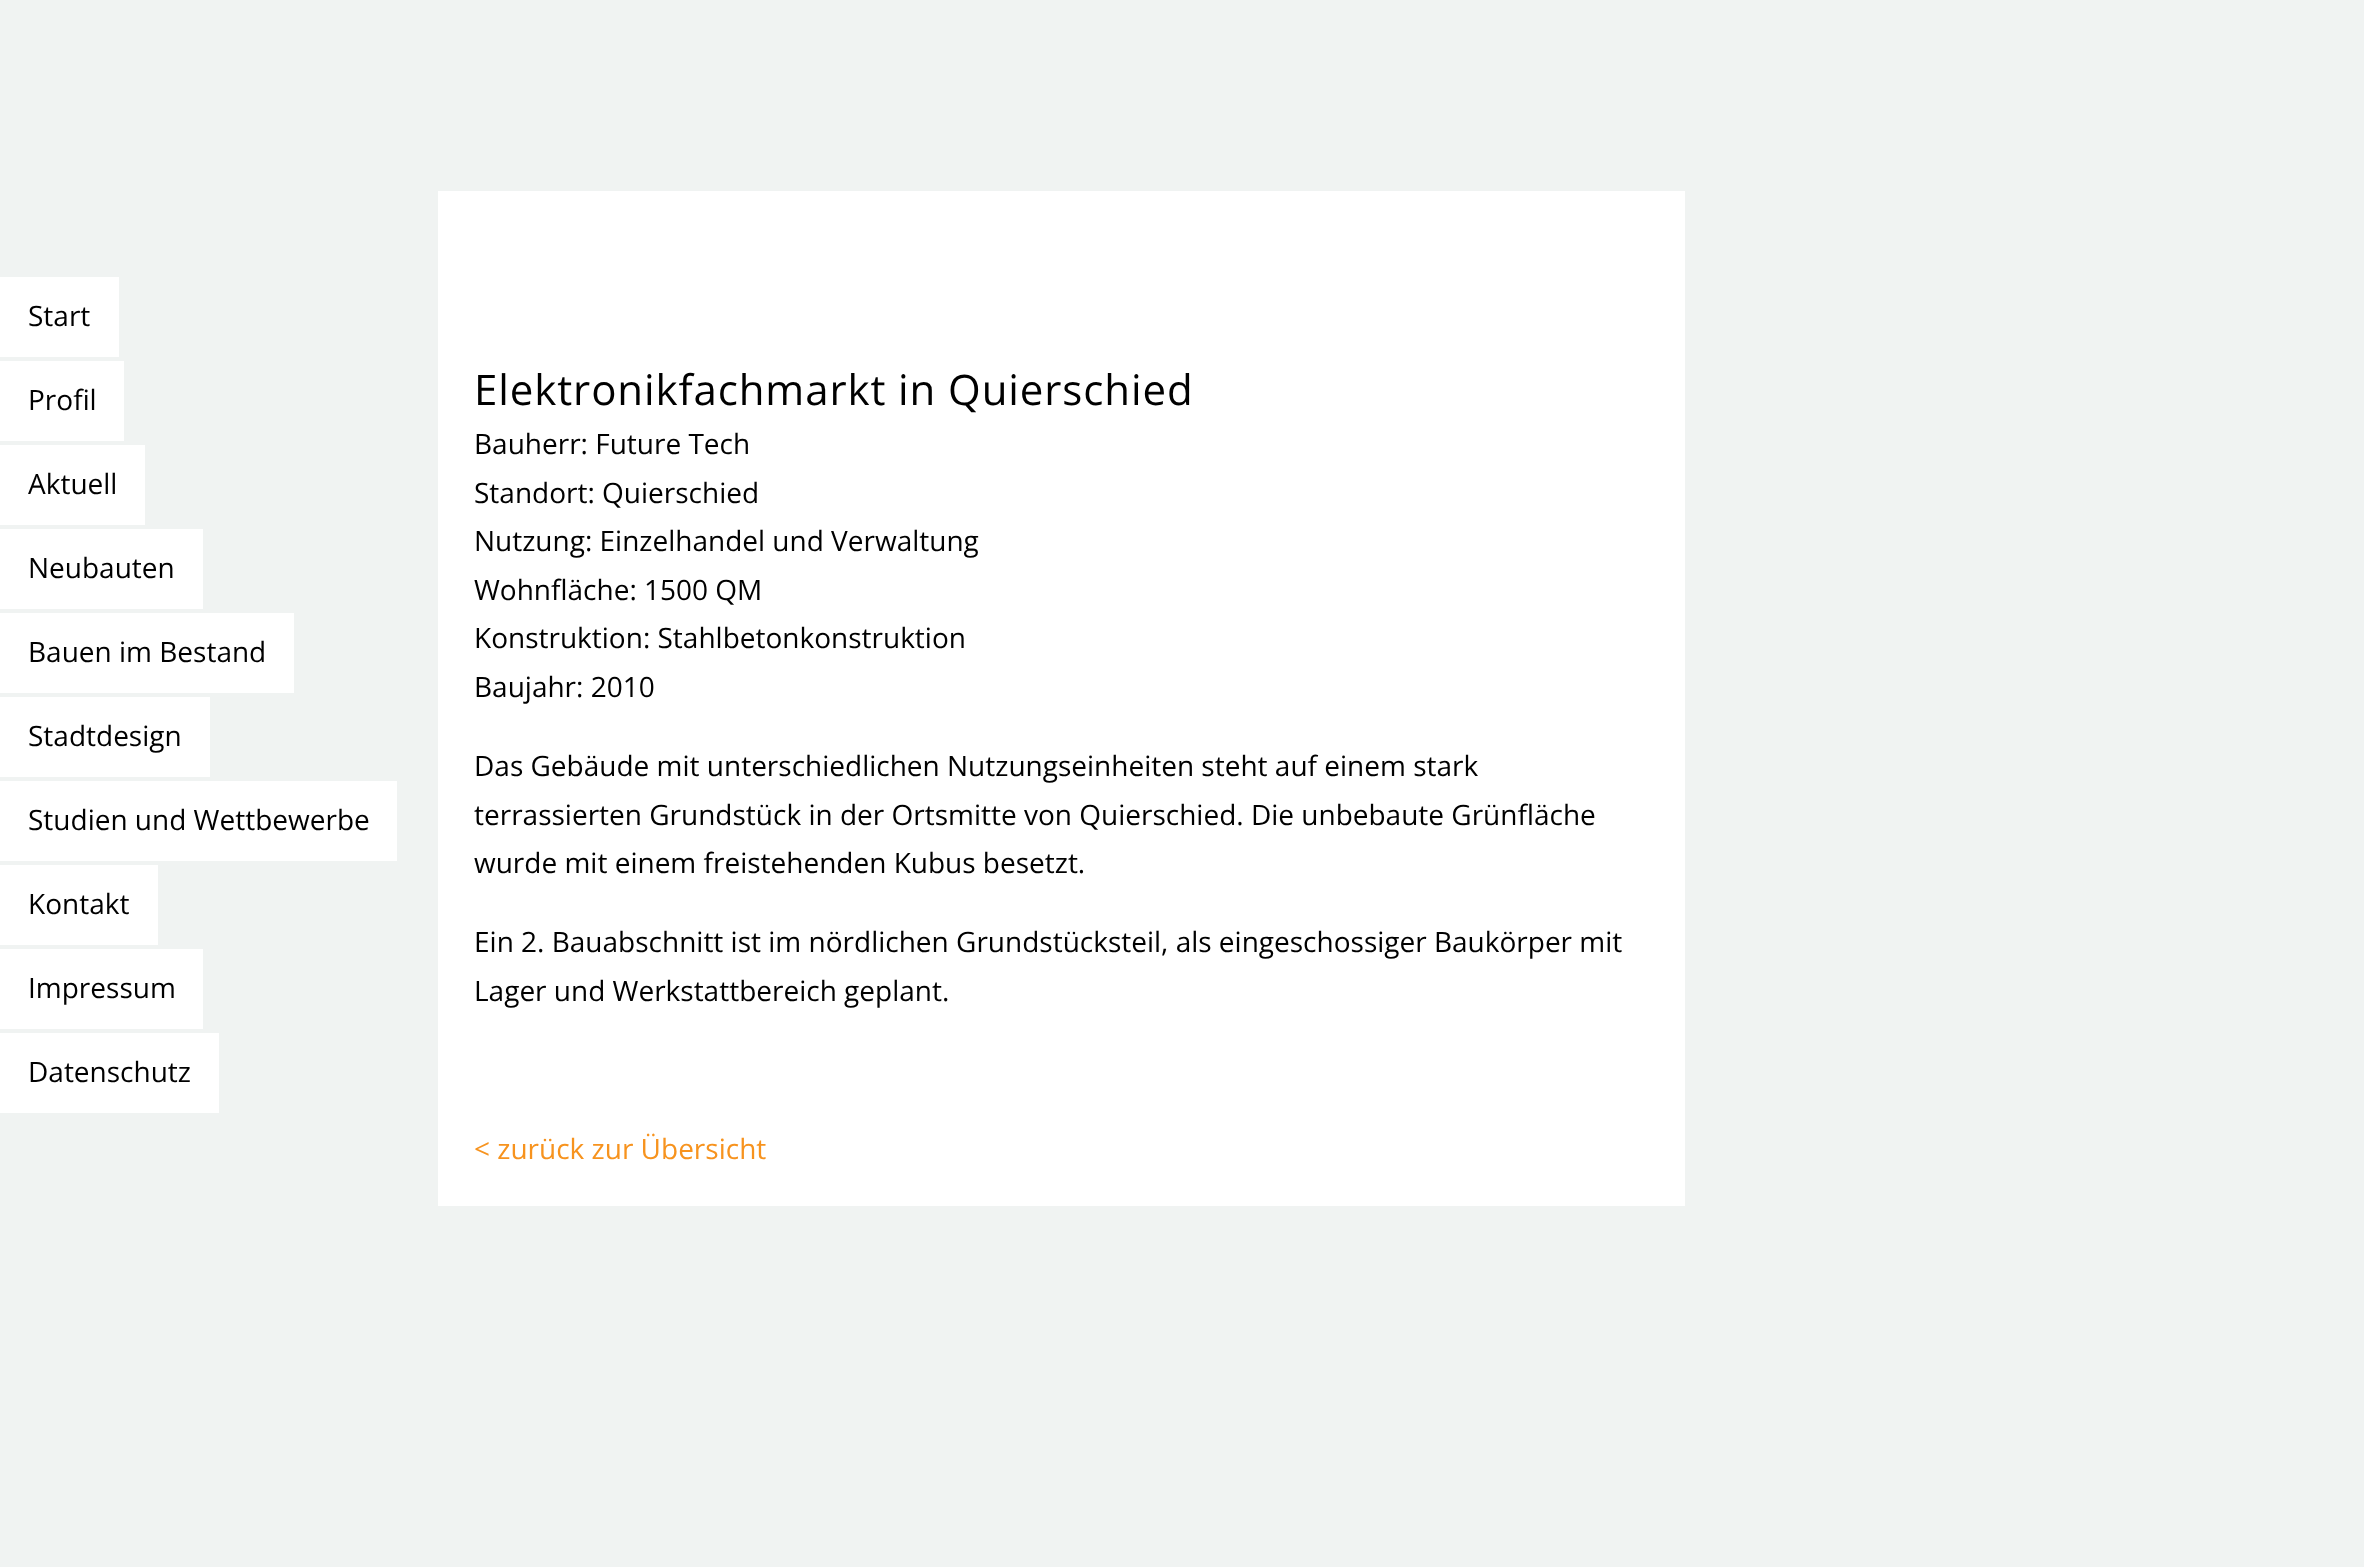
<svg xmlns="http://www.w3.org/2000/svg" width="2364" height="1567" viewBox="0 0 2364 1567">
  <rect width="100%" height="100%" fill="#f0f3f2"/>
  <path d="M0 277h119v80H0z" fill="#fff"/>
  <path d="M0 361h124v80H0z" fill="#fff"/>
  <path d="M0 445h145v80H0z" fill="#fff"/>
  <path d="M0 529h203v80H0z" fill="#fff"/>
  <path d="M0 613h294v80H0z" fill="#fff"/>
  <path d="M0 697h210v80H0z" fill="#fff"/>
  <path d="M0 781h397v80H0z" fill="#fff"/>
  <path d="M0 865h158v80H0z" fill="#fff"/>
  <path d="M0 949h203v80H0z" fill="#fff"/>
  <path d="M0 1033h219v80H0z" fill="#fff"/>
  <path d="M438 191h1247v1015H438z" fill="#fff"/>
  <g font-family="Open Sans" font-size="28" fill="#000">
    <text x="28" y="326">Start</text>
    <text x="28" y="410">Profil</text>
    <text x="28" y="494">Aktuell</text>
    <text x="28" y="578">Neubauten</text>
    <text x="28" y="662">Bauen im Bestand</text>
    <text x="28" y="746">Stadtdesign</text>
    <text x="28" y="830">Studien und Wettbewerbe</text>
    <text x="28" y="914">Kontakt</text>
    <text x="28" y="998">Impressum</text>
    <text x="28" y="1082">Datenschutz</text>
  </g>
  <text x="474" y="405" font-family="Open Sans" font-size="42" letter-spacing="0.9" fill="#000">Elektronikfachmarkt in Quierschied</text>
  <g font-family="Open Sans" font-size="28" fill="#000">
    <text x="474" y="454">Bauherr: Future Tech</text>
    <text x="474" y="503">Standort: Quierschied</text>
    <text x="474" y="551">Nutzung: Einzelhandel und Verwaltung</text>
    <text x="474" y="600">Wohnfläche: 1500 QM</text>
    <text x="474" y="648">Konstruktion: Stahlbetonkonstruktion</text>
    <text x="474" y="697">Baujahr: 2010</text>
    <text x="474" y="776">Das Gebäude mit unterschiedlichen Nutzungseinheiten steht auf einem stark</text>
    <text x="474" y="825">terrassierten Grundstück in der Ortsmitte von Quierschied. Die unbebaute Grünfläche</text>
    <text x="474" y="873">wurde mit einem freistehenden Kubus besetzt.</text>
    <text x="474" y="952">Ein 2. Bauabschnitt ist im nördlichen Grundstücksteil, als eingeschossiger Baukörper mit</text>
    <text x="474" y="1001">Lager und Werkstattbereich geplant.</text>
  </g>
  <text x="474" y="1159" font-family="Open Sans" font-size="28" fill="#f7931e">&lt; zurück zur Übersicht</text>
</svg>
